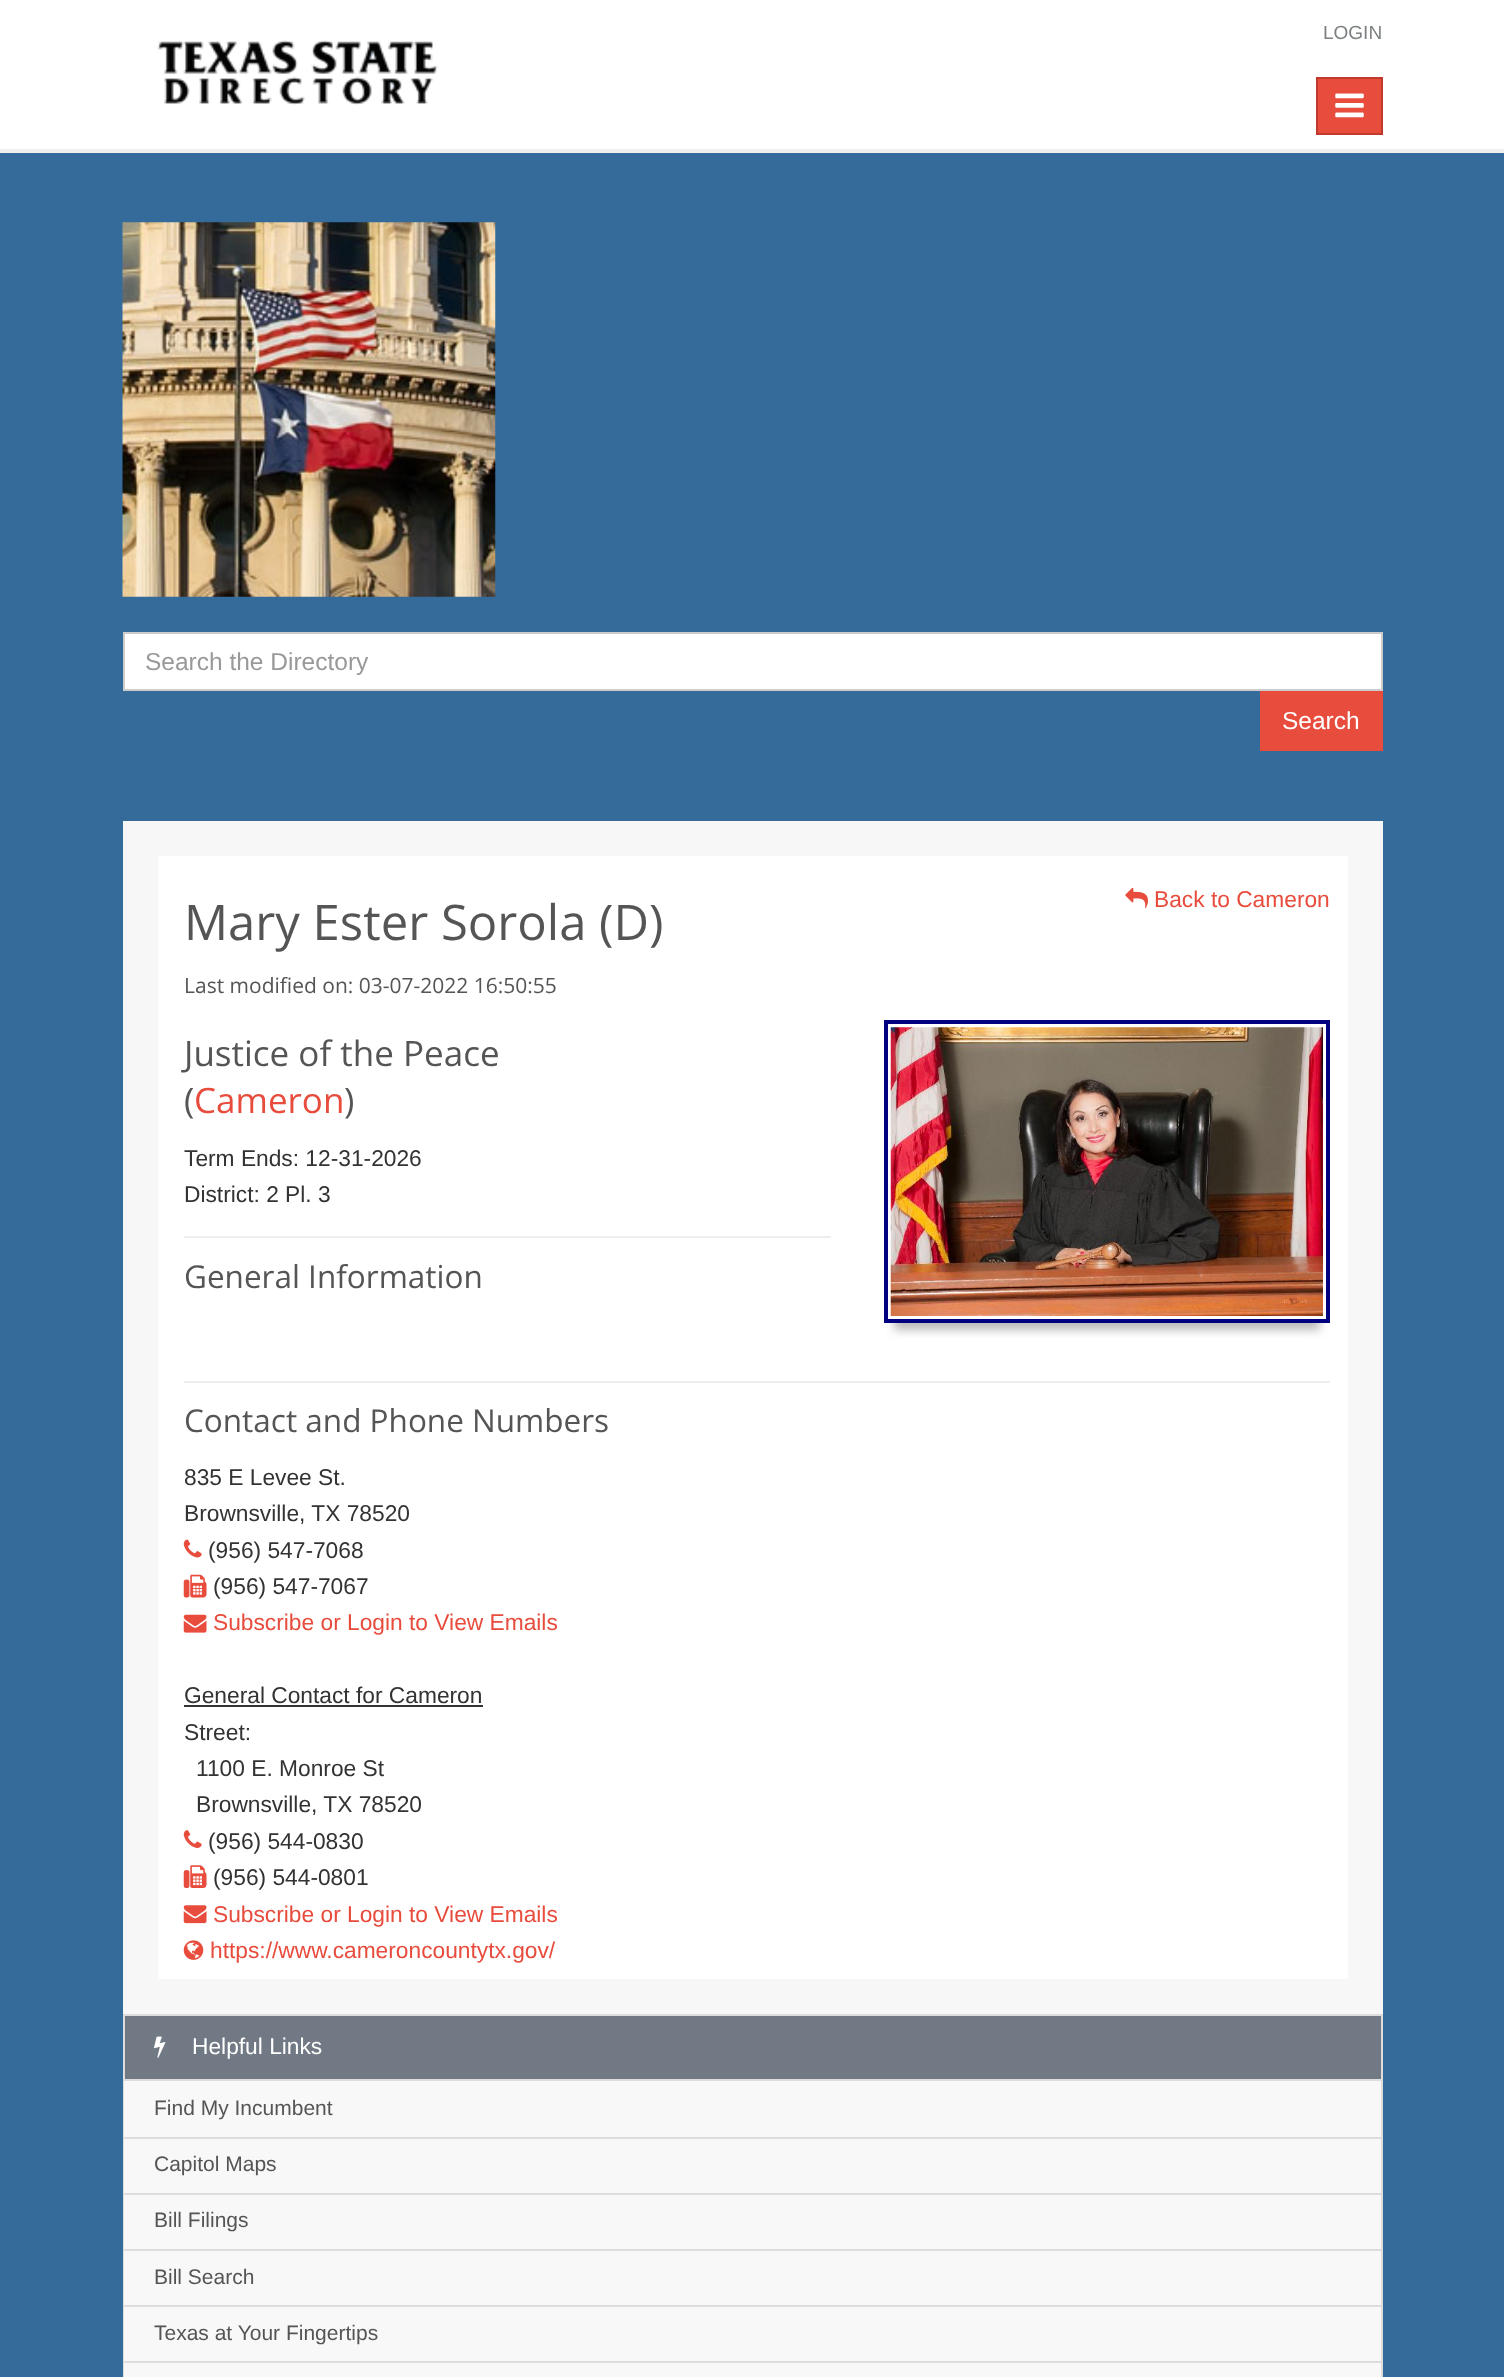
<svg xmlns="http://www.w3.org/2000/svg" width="1504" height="2377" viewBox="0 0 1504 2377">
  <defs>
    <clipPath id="clip1"><path d="M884 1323h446v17H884z"/></clipPath>
  </defs>
  <rect width="100%" height="100%" fill="#356b9a"/>
  <path d="M0 0h1504v149H0z" fill="#fff"/>
  <path d="M0 149h1504v4H0z" fill="#eee"/>
  <image x="157" y="40" width="281" height="65" href="img/1.png"/>
  <path d="M1317 78h65v56H1317z" fill="#e74c3c" stroke="#c0392b" stroke-width="2"/>
  <image x="1335" y="93" width="29" height="25" href="img/2.png"/>
  <image x="122" y="222" width="374" height="375" href="img/3.png"/>
  <path d="M124 633h1258v57H124z" fill="#fff" stroke="#ccc" stroke-width="2"/>
  <path d="M1260 691h123v60H1260z" fill="#e74c3c"/>
  <path d="M123 821h1260v1193H123z" fill="#f7f7f7"/>
  <path d="M158 856h1190v1123H158z" fill="#fff"/>
  <image x="1125" y="887" width="23" height="22" href="img/4.png"/>
  <path d="M184 1236h647v2H184z" fill="#eee"/>
  <g clip-path="url(#clip1)">
    <path d="M894 1048h426v282H894z" fill="#bbb" filter="blur(5px)"/>
  </g>
  <path d="M886 1022h442v299H886z" fill="none" stroke="#000080" stroke-width="4"/>
  <image x="890" y="1027" width="433" height="289" href="img/5.png"/>
  <path d="M184 1381h1146v2H184z" fill="#eee"/>
  <image x="183" y="1539" width="19" height="19" href="img/6.png"/>
  <image x="183" y="1574" width="24" height="24" href="img/7.png"/>
  <image x="183" y="1614" width="24" height="19" href="img/8.png"/>
  <path d="M184 1705h299v2H184z" fill="#333"/>
  <image x="183" y="1830" width="19" height="18" href="img/9.png"/>
  <image x="183" y="1865" width="24" height="23" href="img/10.png"/>
  <image x="183" y="1905" width="24" height="19" href="img/11.png"/>
  <image x="183" y="1940" width="21" height="20" href="img/12.png"/>
  <path d="M125 2016h1256v63H125z" fill="#717984"/>
  <path d="M124 2015h1258v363H124z" fill="none" stroke="#ddd" stroke-width="2"/>
  <image x="154" y="2036" width="12" height="22" href="img/13.png"/>
  <path d="M124 2081h1257v296H124z" fill="#f8f8f8"/>
  <path d="M124 2079h1257v2H124z" fill="#ddd"/>
  <path d="M124 2137h1257v2H124z" fill="#ddd"/>
  <path d="M124 2193h1257v2H124z" fill="#ddd"/>
  <path d="M124 2249h1257v2H124z" fill="#ddd"/>
  <path d="M124 2305h1257v2H124z" fill="#ddd"/>
  <path d="M124 2361h1257v2H124z" fill="#ddd"/>
  <text x="1323" y="39" font-family="Liberation Sans" font-size="19" fill="#7c8082">LOGIN</text>
  <text x="145" y="670" font-family="Liberation Sans" font-size="24.5" fill="#999">Search the Directory</text>
  <text x="1282" y="729" font-family="Liberation Sans" font-size="24.5" fill="#fff">Search</text>
  <text x="1154" y="907" font-family="Liberation Sans" font-size="22.75" fill="#e74c3c">Back to Cameron</text>
  <text x="184" y="940" font-family="Open Sans" font-size="49" fill="#555">Mary Ester Sorola (D)</text>
  <text x="184" y="993" font-family="Open Sans" font-size="21" fill="#555">Last modified on: 03-07-2022 16:50:55</text>
  <g font-family="Open Sans" font-size="35" fill="#555">
    <text x="184" y="1066">Justice of the Peace</text>
    <text x="184" y="1113">(</text>
  </g>
  <text x="194" y="1113" font-family="Open Sans" font-size="35" fill="#e74c3c">Cameron</text>
  <text x="344" y="1113" font-family="Open Sans" font-size="35" fill="#555">)</text>
  <g font-family="Liberation Sans" font-size="22.75" fill="#333">
    <text x="184" y="1166">Term Ends: 12-31-2026</text>
    <text x="184" y="1202">District: 2 Pl. 3</text>
  </g>
  <g font-family="Open Sans" font-size="31.5" fill="#555">
    <text x="184" y="1288">General Information</text>
    <text x="184" y="1432">Contact and Phone Numbers</text>
  </g>
  <g font-family="Liberation Sans" font-size="22.75" fill="#333">
    <text x="184" y="1485">835 E Levee St.</text>
    <text x="184" y="1521">Brownsville, TX 78520</text>
    <text x="208" y="1558">(956) 547-7068</text>
    <text x="213" y="1594">(956) 547-7067</text>
  </g>
  <text x="213" y="1630" font-family="Liberation Sans" font-size="22.75" fill="#e74c3c">Subscribe or Login to View Emails</text>
  <g font-family="Liberation Sans" font-size="22.75" fill="#333">
    <text x="184" y="1703">General Contact for Cameron</text>
    <text x="184" y="1740">Street:</text>
    <text x="196" y="1776">1100 E. Monroe St</text>
    <text x="196" y="1812">Brownsville, TX 78520</text>
    <text x="208" y="1849">(956) 544-0830</text>
    <text x="213" y="1885">(956) 544-0801</text>
  </g>
  <g font-family="Liberation Sans" font-size="22.75" fill="#e74c3c">
    <text x="213" y="1922">Subscribe or Login to View Emails</text>
    <text x="210" y="1958">https://www.cameroncountytx.gov/</text>
  </g>
  <text x="192" y="2054" font-family="Liberation Sans" font-size="22.75" fill="#fff">Helpful Links</text>
  <g font-family="Liberation Sans" font-size="21" fill="#555">
    <text x="154" y="2115">Find My Incumbent</text>
    <text x="154" y="2171">Capitol Maps</text>
    <text x="154" y="2227">Bill Filings</text>
    <text x="154" y="2284">Bill Search</text>
    <text x="154" y="2340">Texas at Your Fingertips</text>
  </g>
</svg>
